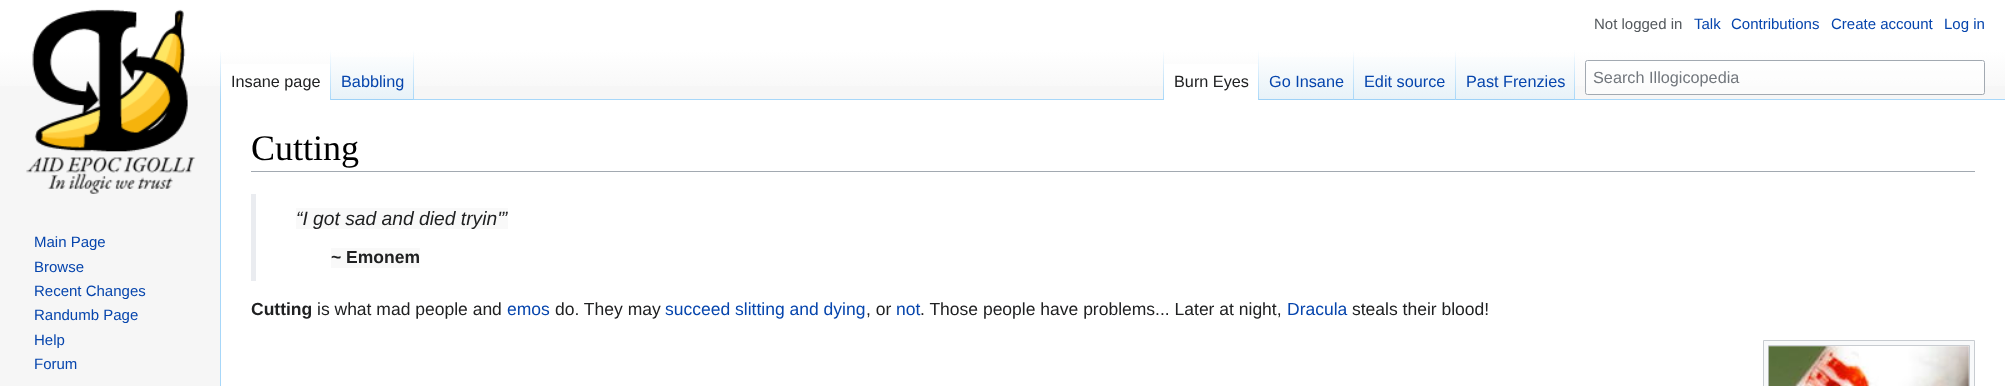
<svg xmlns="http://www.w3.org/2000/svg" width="2005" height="386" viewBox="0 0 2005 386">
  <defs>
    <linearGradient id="g1" gradientUnits="userSpaceOnUse" x1="1003" y1="0" x2="1003" y2="100"><stop offset="0.5" stop-color="#fff"/><stop offset="1" stop-color="#f6f6f6"/></linearGradient>
    <linearGradient id="g2" gradientUnits="userSpaceOnUse" x1="221" y1="50" x2="221" y2="100"><stop offset="0" stop-color="#a7d7f9" stop-opacity="0"/><stop offset="1" stop-color="#a7d7f9"/></linearGradient>
    <linearGradient id="g3" gradientUnits="userSpaceOnUse" x1="331" y1="50" x2="331" y2="100"><stop offset="0" stop-color="#fff"/><stop offset="1" stop-color="#a7d7f9"/></linearGradient>
    <linearGradient id="g4" gradientUnits="userSpaceOnUse" x1="373" y1="100" x2="373" y2="50"><stop offset="0" stop-color="#77c1f6"/><stop offset="0.03" stop-color="#e8f2f8"/><stop offset="1" stop-color="#fff"/></linearGradient>
    <linearGradient id="g5" gradientUnits="userSpaceOnUse" x1="413" y1="50" x2="413" y2="100"><stop offset="0" stop-color="#a7d7f9" stop-opacity="0"/><stop offset="1" stop-color="#a7d7f9"/></linearGradient>
    <linearGradient id="g6" gradientUnits="userSpaceOnUse" x1="1163" y1="50" x2="1163" y2="100"><stop offset="0" stop-color="#a7d7f9" stop-opacity="0"/><stop offset="1" stop-color="#a7d7f9"/></linearGradient>
    <linearGradient id="g7" gradientUnits="userSpaceOnUse" x1="1258" y1="50" x2="1258" y2="100"><stop offset="0" stop-color="#fff"/><stop offset="1" stop-color="#a7d7f9"/></linearGradient>
    <linearGradient id="g8" gradientUnits="userSpaceOnUse" x1="1306" y1="100" x2="1306" y2="50"><stop offset="0" stop-color="#77c1f6"/><stop offset="0.03" stop-color="#e8f2f8"/><stop offset="1" stop-color="#fff"/></linearGradient>
    <linearGradient id="g9" gradientUnits="userSpaceOnUse" x1="1353" y1="50" x2="1353" y2="100"><stop offset="0" stop-color="#a7d7f9" stop-opacity="0"/><stop offset="1" stop-color="#a7d7f9"/></linearGradient>
    <linearGradient id="g10" gradientUnits="userSpaceOnUse" x1="1405" y1="100" x2="1405" y2="50"><stop offset="0" stop-color="#77c1f6"/><stop offset="0.03" stop-color="#e8f2f8"/><stop offset="1" stop-color="#fff"/></linearGradient>
    <linearGradient id="g11" gradientUnits="userSpaceOnUse" x1="1456" y1="50" x2="1456" y2="100"><stop offset="0" stop-color="#a7d7f9" stop-opacity="0"/><stop offset="1" stop-color="#a7d7f9"/></linearGradient>
    <linearGradient id="g12" gradientUnits="userSpaceOnUse" x1="1516" y1="100" x2="1516" y2="50"><stop offset="0" stop-color="#77c1f6"/><stop offset="0.03" stop-color="#e8f2f8"/><stop offset="1" stop-color="#fff"/></linearGradient>
    <linearGradient id="g13" gradientUnits="userSpaceOnUse" x1="1574" y1="50" x2="1574" y2="100"><stop offset="0" stop-color="#a7d7f9" stop-opacity="0"/><stop offset="1" stop-color="#a7d7f9"/></linearGradient>
  </defs>
  <rect width="100%" height="100%" fill="#f6f6f6"/>
  <path d="M0 0h2005v86H0z" fill="url(#g1)"/>
  <path d="M220 99h1v287H220z" fill="#a7d7f9"/>
  <path d="M220 50h1v50H220z" fill="url(#g2)"/>
  <path d="M221 64h109v36H221z" fill="#fff"/>
  <path d="M330 50h1v50H330z" fill="url(#g3)"/>
  <path d="M331 57h83v43H331z" fill="url(#g4)"/>
  <path d="M413 50h1v50H413z" fill="url(#g5)"/>
  <path d="M414 99h1591v1H414z" fill="#a7d7f9"/>
  <path d="M1163 50h1v50H1163z" fill="url(#g6)"/>
  <path d="M1164 64h94v36H1164z" fill="#fff"/>
  <path d="M1258 50h1v50H1258z" fill="url(#g7)"/>
  <path d="M1259 57h95v43H1259z" fill="url(#g8)"/>
  <path d="M1353 50h1v50H1353z" fill="url(#g9)"/>
  <path d="M1354 57h102v43H1354z" fill="url(#g10)"/>
  <path d="M1455 50h1v50H1455z" fill="url(#g11)"/>
  <path d="M1456 57h119v43H1456z" fill="url(#g12)"/>
  <path d="M1574 50h1v50H1574z" fill="url(#g13)"/>
  <rect x="1585.5" y="60.5" width="399" height="34" rx="2" fill="#ffffff80" stroke="#a2a9b1"/>
  <image x="26" y="9" width="170" height="185" href="img/1.png"/>
  <path d="M221 100h1784v286H221z" fill="#fff"/>
  <path d="M251 171h1724v1H251z" fill="#a2a9b1"/>
  <path d="M251 194h5v87H251z" fill="#eaecf0"/>
  <path d="M296 208h212v21H296z" fill="#f9f9f9"/>
  <path d="M331 248h89v20H331z" fill="#f9f9f9"/>
  <path d="M1763.5 340.5h211v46H1763.5z" fill="#f8f9fa" stroke="#c8ccd1"/>
  <path d="M1768.5 345.5h201v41H1768.5z" fill="#fff" stroke="#c8ccd1"/>
  <image x="1768" y="346" width="201" height="40" href="img/2.png"/>
  <text x="1594" y="29" font-family="Liberation Sans" font-size="15" fill="#54595d">Not logged in</text>
  <g font-family="Liberation Sans" font-size="15" fill="#0645ad">
    <text x="1694" y="29">Talk</text>
    <text x="1731" y="29">Contributions</text>
    <text x="1831" y="29">Create account</text>
    <text x="1944" y="29">Log in</text>
  </g>
  <text x="231" y="87" font-family="Liberation Sans" font-size="16.25" fill="#202122">Insane page</text>
  <text x="341" y="87" font-family="Liberation Sans" font-size="16.25" fill="#0645ad">Babbling</text>
  <text x="1174" y="87" font-family="Liberation Sans" font-size="16.25" fill="#202122">Burn Eyes</text>
  <g font-family="Liberation Sans" font-size="16.25" fill="#0645ad">
    <text x="1269" y="87">Go Insane</text>
    <text x="1364" y="87">Edit source</text>
    <text x="1466" y="87">Past Frenzies</text>
  </g>
  <text x="1593" y="83" font-family="Liberation Sans" font-size="16.25" fill="#72777d">Search Illogicopedia</text>
  <g font-family="Liberation Sans" font-size="15" fill="#0645ad">
    <text x="34" y="247">Main Page</text>
    <text x="34" y="272">Browse</text>
    <text x="34" y="296">Recent Changes</text>
    <text x="34" y="320">Randumb Page</text>
    <text x="34" y="345">Help</text>
    <text x="34" y="369">Forum</text>
  </g>
  <text x="251" y="160" font-family="Liberation Serif" font-size="36" fill="#000">Cutting</text>
  <text x="296" y="225" font-family="Liberation Sans" font-size="19.25" font-style="italic" fill="#202122">“I got sad and died tryin'”</text>
  <g font-family="Liberation Sans" font-size="17.5" font-weight="bold" fill="#202122">
    <text x="331" y="263">~ Emonem</text>
    <text x="251" y="315">Cutting</text>
  </g>
  <text x="317" y="315" font-family="Liberation Sans" font-size="17.5" fill="#202122">is what mad people and</text>
  <text x="507" y="315" font-family="Liberation Sans" font-size="17.5" fill="#0645ad">emos</text>
  <text x="555" y="315" font-family="Liberation Sans" font-size="17.5" fill="#202122">do. They may</text>
  <text x="665" y="315" font-family="Liberation Sans" font-size="17.5" fill="#0645ad">succeed slitting and dying</text>
  <text x="866" y="315" font-family="Liberation Sans" font-size="17.5" fill="#202122">, or</text>
  <text x="896" y="315" font-family="Liberation Sans" font-size="17.5" fill="#0645ad">not</text>
  <text x="920" y="315" font-family="Liberation Sans" font-size="17.5" fill="#202122">. Those people have problems... Later at night,</text>
  <text x="1287" y="315" font-family="Liberation Sans" font-size="17.5" fill="#0645ad">Dracula</text>
  <text x="1352" y="315" font-family="Liberation Sans" font-size="17.5" fill="#202122">steals their blood!</text>
</svg>
